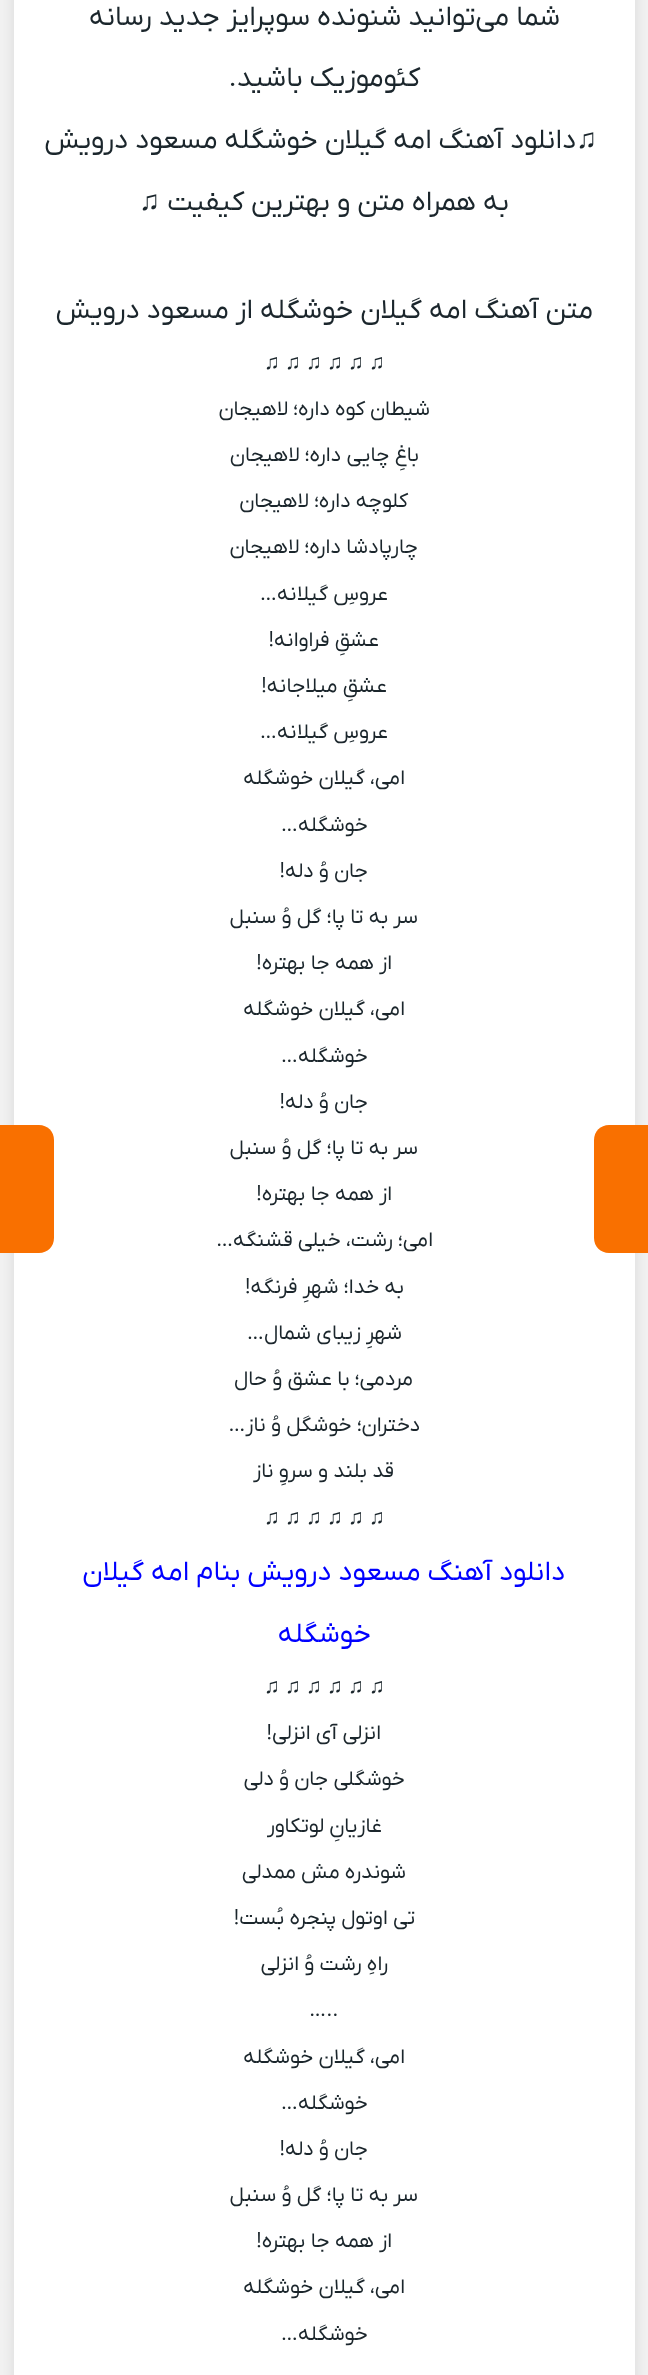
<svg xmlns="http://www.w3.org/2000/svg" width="648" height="2375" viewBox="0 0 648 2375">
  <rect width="100%" height="100%" fill="#f2f2f2"/>
  <rect x="14" y="-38" width="621" height="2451" rx="15" fill="#0000001a" filter="blur(7.5px)"/>
  <path d="M14 0h621v2375H14z" fill="#fff"/>
  <path d="M609 1125H648V1253H609C600.5 1253 594 1246.5 594 1238V1140C594 1131.5 600.5 1125 609 1125Z" fill="#f97000"/>
  <path d="M0 1125H39C47.5 1125 54 1131.5 54 1140V1238C54 1246.5 47.5 1253 39 1253H0Z" fill="#f97000"/>
  <text x="718" y="1233" transform="rotate(-90 718 1233)" font-family="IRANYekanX" font-size="19.5" direction="rtl" fill="#fff">پست بعدی</text>
  <g font-family="IRANYekanX" font-size="28" direction="rtl" fill="#1b262c">
    <text x="560" y="25">شما می‌توانید شنونده سوپرایز جدید رسانه</text>
    <text x="420" y="86">کئوموزیک باشید.</text>
  </g>
  <text x="576" y="148" font-family="Liberation Serif" font-size="28" fill="#1b262c">♫</text>
  <g font-family="IRANYekanX" font-size="28" direction="rtl" fill="#1b262c">
    <text x="576" y="148">دانلود آهنگ امه گیلان خوشگله مسعود درویش</text>
    <text x="509" y="210">به همراه متن و بهترین کیفیت</text>
  </g>
  <text x="160" y="210" font-family="Liberation Serif" font-size="28" direction="rtl" fill="#1b262c">♫</text>
  <text x="593" y="318" font-family="IRANYekanX" font-size="28" direction="rtl" fill="#1b262c">متن آهنگ امه گیلان خوشگله از مسعود درویش</text>
  <text x="264" y="369" font-family="Liberation Serif" font-size="21" fill="#1b262c">♫ ♫ ♫ ♫ ♫ ♫</text>
  <g font-family="IRANYekanX" font-size="21" direction="rtl" fill="#1b262c">
    <text x="430" y="415">شیطان کوه داره؛ لاهیجان</text>
    <text x="419" y="461">باغِ چایی داره؛ لاهیجان</text>
    <text x="408" y="507">کلوچه داره؛ لاهیجان</text>
    <text x="418" y="553">چارپادشا داره؛ لاهیجان</text>
    <text x="388" y="600">عروسِ گیلانه…</text>
    <text x="379" y="646">عشقِ فراوانه!</text>
    <text x="387" y="692">عشقِ میلاجانه!</text>
    <text x="388" y="738">عروسِ گیلانه…</text>
    <text x="405" y="784">امی، گیلان خوشگله</text>
    <text x="368" y="831">خوشگله…</text>
    <text x="368" y="877">جان وُ دله!</text>
    <text x="418" y="923">سر به تا پا؛ گل وُ سنبل</text>
    <text x="392" y="969">از همه جا بهتره!</text>
    <text x="405" y="1015">امی، گیلان خوشگله</text>
    <text x="368" y="1062">خوشگله…</text>
    <text x="368" y="1108">جان وُ دله!</text>
    <text x="418" y="1154">سر به تا پا؛ گل وُ سنبل</text>
    <text x="392" y="1200">از همه جا بهتره!</text>
    <text x="433" y="1246">امی؛ رشت، خیلی قشنگه…</text>
    <text x="404" y="1293">به خدا؛ شهرِ فرنگه!</text>
    <text x="402" y="1339">شهرِ زیبای شمال…</text>
    <text x="413" y="1385">مردمی؛ با عشق وُ حال</text>
    <text x="420" y="1431">دختران؛ خوشگل وُ ناز…</text>
    <text x="394" y="1477">قد بلند و سروِ ناز</text>
  </g>
  <text x="264" y="1524" font-family="Liberation Serif" font-size="21" fill="#1b262c">♫ ♫ ♫ ♫ ♫ ♫</text>
  <g font-family="IRANYekanX" font-size="28" direction="rtl" fill="#00f">
    <text x="565" y="1580">دانلود آهنگ مسعود درویش بنام امه گیلان</text>
    <text x="371" y="1642">خوشگله</text>
  </g>
  <text x="264" y="1693" font-family="Liberation Serif" font-size="21" fill="#1b262c">♫ ♫ ♫ ♫ ♫ ♫</text>
  <g font-family="IRANYekanX" font-size="21" direction="rtl" fill="#1b262c">
    <text x="381" y="1739">انزلی آی انزلی!</text>
    <text x="405" y="1785">خوشگلی جان وُ دلی</text>
    <text x="382" y="1832">غازیانِ لوتکاور</text>
    <text x="406" y="1878">شوندره مش ممدلی</text>
    <text x="415" y="1924">تی اوتول پنجره بُست!</text>
    <text x="388" y="1970">راهِ رشت وُ انزلی</text>
  </g>
  <text x="309" y="2016" font-family="IRANYekanX" font-size="21" fill="#1b262c">…..</text>
  <g font-family="IRANYekanX" font-size="21" direction="rtl" fill="#1b262c">
    <text x="405" y="2063">امی، گیلان خوشگله</text>
    <text x="368" y="2109">خوشگله…</text>
    <text x="368" y="2155">جان وُ دله!</text>
    <text x="418" y="2201">سر به تا پا؛ گل وُ سنبل</text>
    <text x="392" y="2247">از همه جا بهتره!</text>
    <text x="405" y="2293">امی، گیلان خوشگله</text>
    <text x="368" y="2340">خوشگله…</text>
  </g>
  <text x="110" y="1229" transform="rotate(-90 110 1229)" font-family="IRANYekanX" font-size="19.5" direction="rtl" fill="#fff">پست قبلی</text>
</svg>
